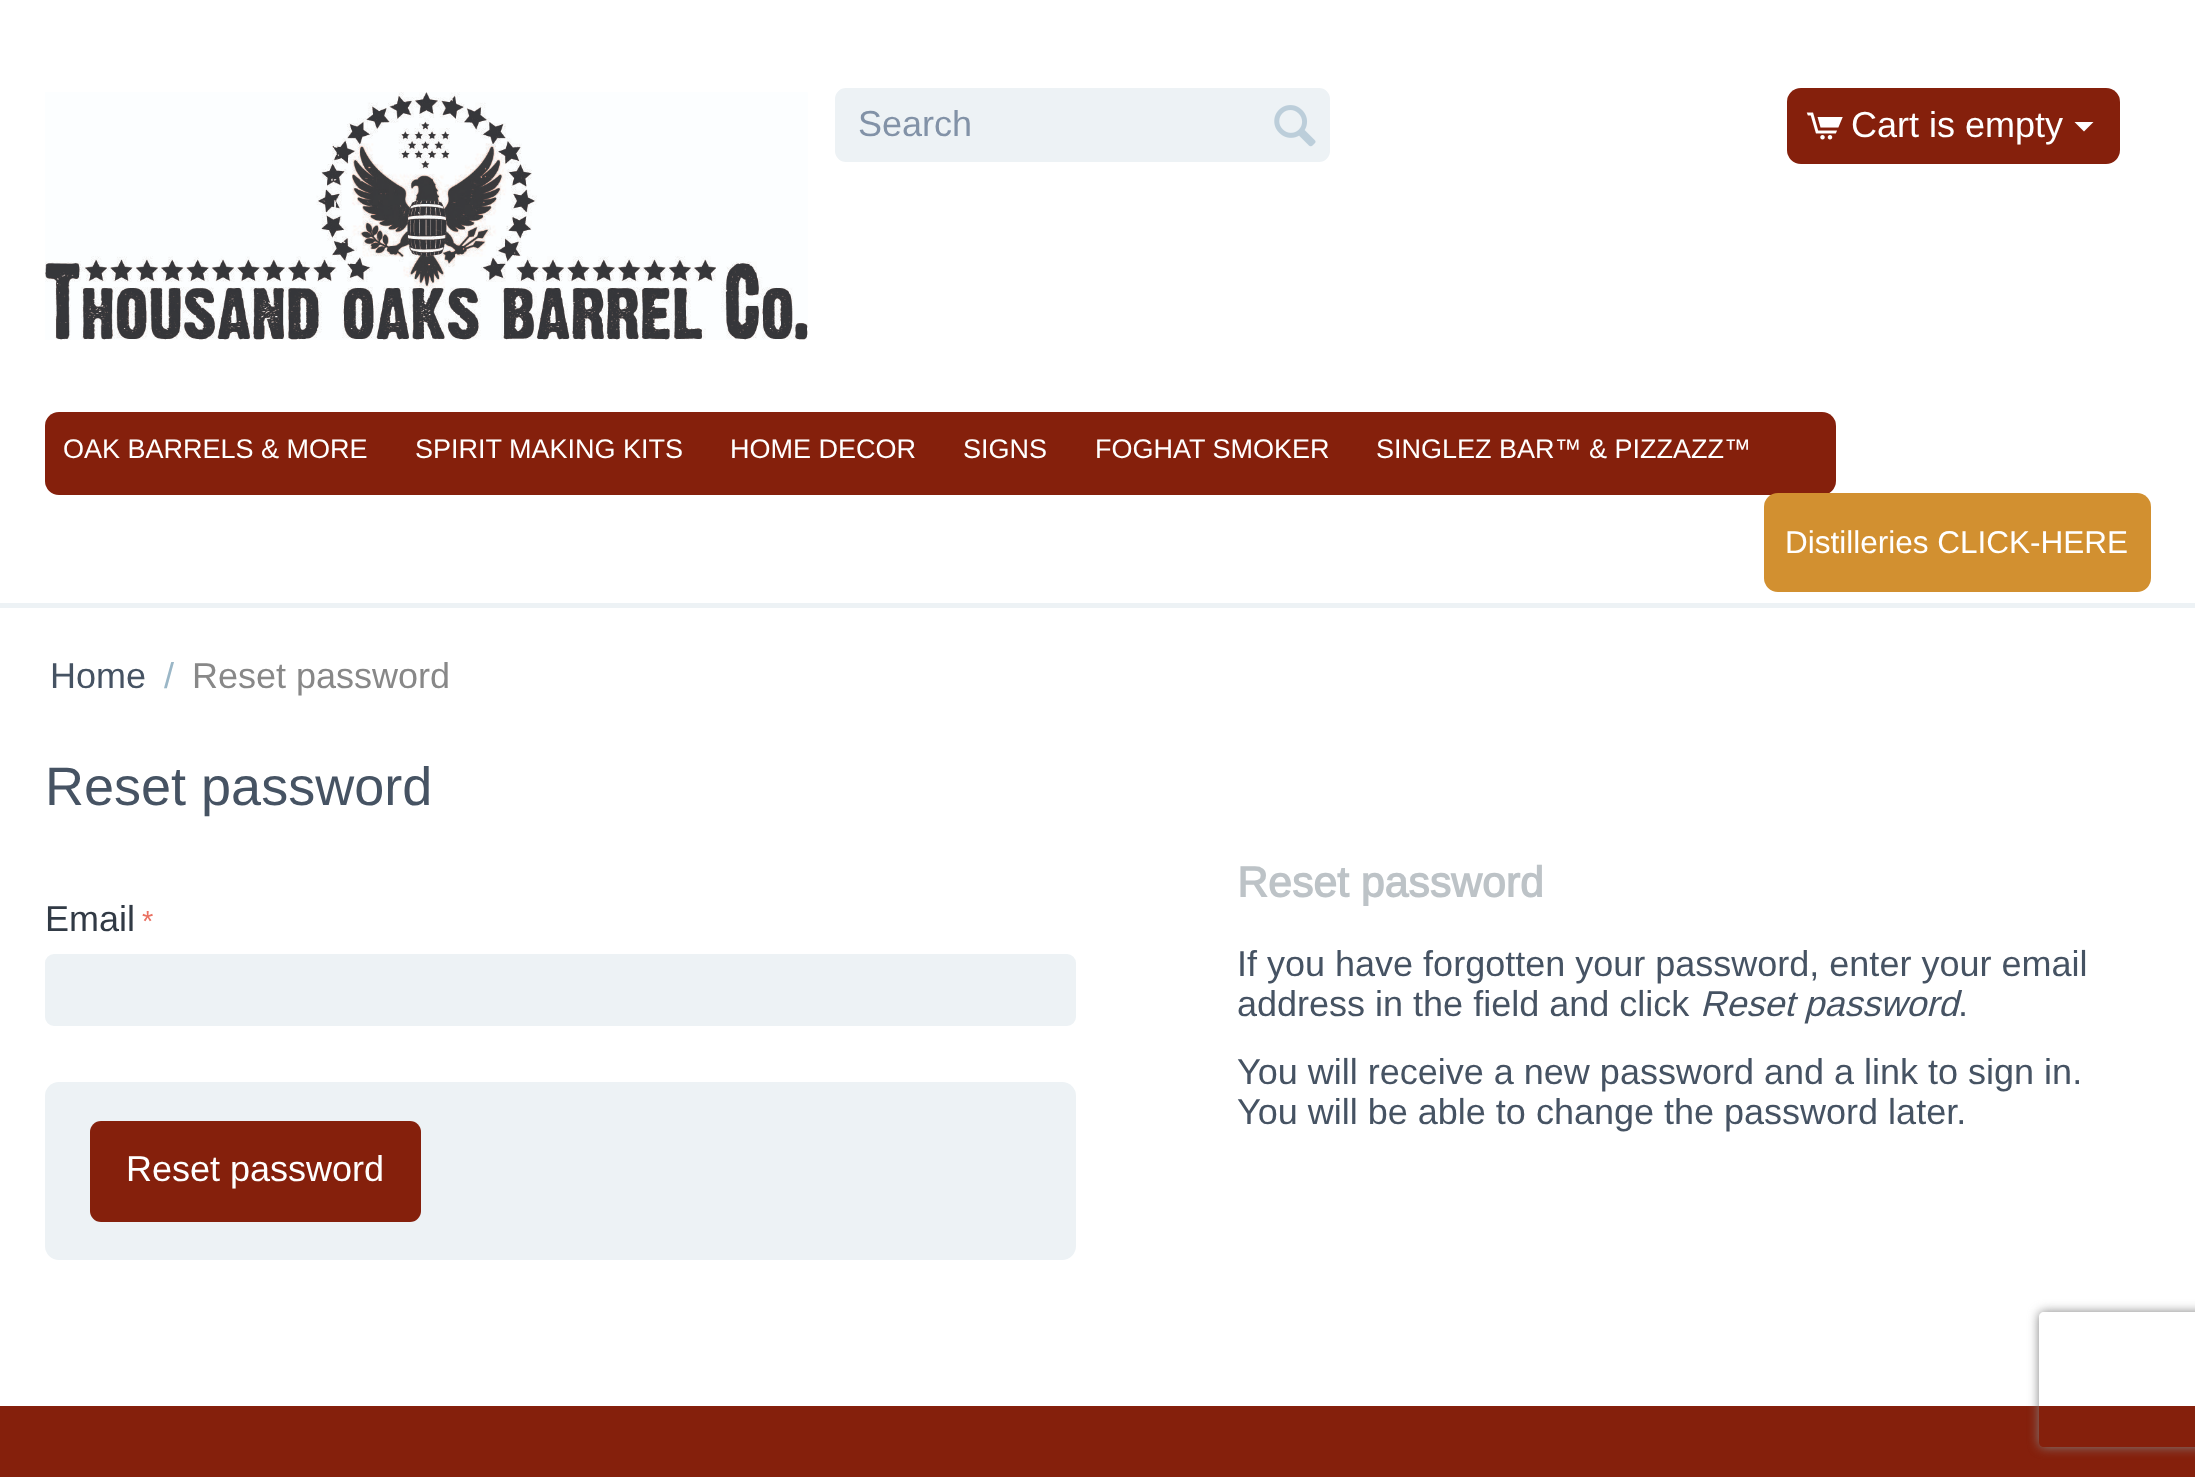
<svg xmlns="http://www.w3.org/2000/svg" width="2195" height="1477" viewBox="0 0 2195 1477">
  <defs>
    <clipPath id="clip1"><path d="M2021 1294H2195V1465H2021ZM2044 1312H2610C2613 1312 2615 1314 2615 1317V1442C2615 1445 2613 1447 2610 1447H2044C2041 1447 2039 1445 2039 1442V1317C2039 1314 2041 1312 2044 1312Z" clip-rule="evenodd"/></clipPath>
  </defs>
  <rect width="100%" height="100%" fill="#fff"/>
  <image x="45" y="92" width="763" height="248" href="img/1.png"/>
  <rect x="837.5" y="90.5" width="490" height="69" rx="8.5" fill="#edf2f5" stroke="#edf2f5" stroke-width="5"/>
  <image x="1274" y="105" width="42" height="42" href="img/2.png"/>
  <rect x="1787" y="88" width="333" height="76" rx="14" fill="#85200c"/>
  <image x="1806" y="112" width="37" height="28" href="img/3.png"/>
  <path d="M2084 131.5L2074.5 122H2093.5Z" fill="#fff"/>
  <rect x="45" y="412" width="1791" height="83" rx="14" fill="#85200c"/>
  <rect x="1764" y="493" width="387" height="99" rx="14" fill="#d29030"/>
  <path d="M0 603h2195v5H0z" fill="#edf2f5"/>
  <rect x="47.5" y="956.5" width="1026" height="67" rx="6.5" fill="#edf2f5" stroke="#edf2f5" stroke-width="5"/>
  <rect x="45" y="1082" width="1031" height="178" rx="14" fill="#edf2f5"/>
  <rect x="90" y="1121" width="331" height="101" rx="11" fill="#85200c"/>
  <path d="M0 1406h2195v71H0z" fill="#85200c"/>
  <g clip-path="url(#clip1)">
    <rect x="2039" y="1312" width="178" height="135" rx="5" fill="#808080" filter="blur(5.5px)"/>
  </g>
  <text x="858" y="136" font-family="Arimo" font-size="36" fill="#8292a7">Search</text>
  <text x="1851" y="137" font-family="Arimo" font-size="36" fill="#fff">Cart is empty</text>
  <g font-family="Arimo" font-size="27" fill="#fff">
    <text x="63" y="458">OAK BARRELS &amp; MORE</text>
    <text x="415" y="458">SPIRIT MAKING KITS</text>
    <text x="730" y="458">HOME DECOR</text>
    <text x="963" y="458">SIGNS</text>
    <text x="1095" y="458">FOGHAT SMOKER</text>
    <text x="1376" y="458">SINGLEZ BAR™ &amp; PIZZAZZ™</text>
  </g>
  <text x="1785" y="553" font-family="Arimo" font-size="31.5" fill="#fff">Distilleries CLICK-HERE</text>
  <text x="50" y="688" font-family="Arimo" font-size="36" fill="#465363">Home</text>
  <text x="164" y="688" font-family="Arimo" font-size="36" fill="#9bb7c7">/</text>
  <text x="192" y="688" font-family="Arimo" font-size="36" fill="#888">Reset password</text>
  <text x="45" y="805" font-family="Arimo" font-size="54" fill="#465363">Reset password</text>
  <text x="45" y="931" font-family="Arimo" font-size="36" fill="#313a45">Email</text>
  <text x="142" y="931" font-family="Arimo" font-size="29" fill="#ea7162">*</text>
  <text x="126" y="1181" font-family="Arimo" font-size="36" fill="#fff">Reset password</text>
  <text x="1237" y="897" font-family="Arimo" font-size="42.75" font-weight="bold" fill="#bdc3c7">Reset password</text>
  <g font-family="Arimo" font-size="36" fill="#465363">
    <text x="1237" y="976">If you have forgotten your password, enter your email</text>
    <text x="1237" y="1016">address in the field and click</text>
  </g>
  <text x="1700" y="1016" font-family="Arimo" font-size="36" font-style="italic" fill="#465363">Reset password</text>
  <g font-family="Arimo" font-size="36" fill="#465363">
    <text x="1958" y="1016">.</text>
    <text x="1237" y="1084">You will receive a new password and a link to sign in.</text>
    <text x="1237" y="1124">You will be able to change the password later.</text>
  </g>
</svg>
